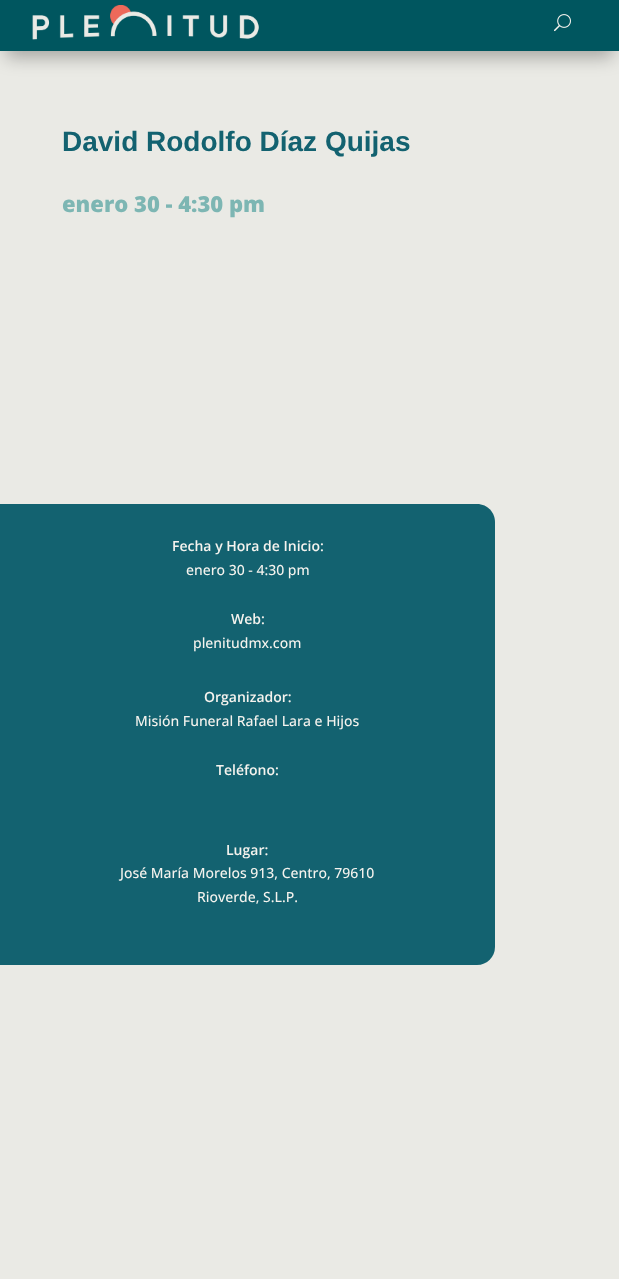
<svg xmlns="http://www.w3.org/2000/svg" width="619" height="1279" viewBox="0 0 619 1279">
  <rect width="100%" height="100%" fill="#eaeae5"/>
  <path d="M6 18h607v39H6z" fill="#0000004d" filter="blur(9px)"/>
  <path d="M0 0h619v51H0z" fill="#00565f"/>
  <image x="32" y="5" width="227" height="35" href="img/1.png"/>
  <image x="554" y="14" width="17" height="18" href="img/2.png"/>
  <path d="M0 504H477C487 504 495 512 495 522V947C495 957 487 965 477 965H0Z" fill="#136270"/>
  <text x="62" y="151" font-family="Liberation Sans" font-size="28" font-weight="bold" fill="#136270">David Rodolfo Díaz Quijas</text>
  <text x="62" y="212" font-family="Open Sans" font-size="22" font-weight="800" fill="#7db6b3">enero 30 - 4:30 pm</text>
  <text x="172" y="551" font-family="Open Sans" font-size="14" font-weight="600" fill="#f5f3ee">Fecha y Hora de Inicio:</text>
  <text x="186" y="575" font-family="Open Sans" font-size="14" font-weight="500" fill="#f5f3ee">enero 30 - 4:30 pm</text>
  <text x="231" y="624" font-family="Open Sans" font-size="14" font-weight="600" fill="#f5f3ee">Web:</text>
  <text x="193" y="648" font-family="Open Sans" font-size="14" font-weight="500" fill="#f5f3ee">plenitudmx.com</text>
  <text x="204" y="702" font-family="Open Sans" font-size="14" font-weight="600" fill="#f5f3ee">Organizador:</text>
  <text x="135" y="726" font-family="Open Sans" font-size="14" font-weight="500" fill="#f5f3ee">Misión Funeral Rafael Lara e Hijos</text>
  <g font-family="Open Sans" font-size="14" font-weight="600" fill="#f5f3ee">
    <text x="216" y="775">Teléfono:</text>
    <text x="226" y="855">Lugar:</text>
  </g>
  <g font-family="Open Sans" font-size="14" font-weight="500" fill="#f5f3ee">
    <text x="120" y="878">José María Morelos 913, Centro, 79610</text>
    <text x="197" y="902">Rioverde, S.L.P.</text>
  </g>
</svg>
